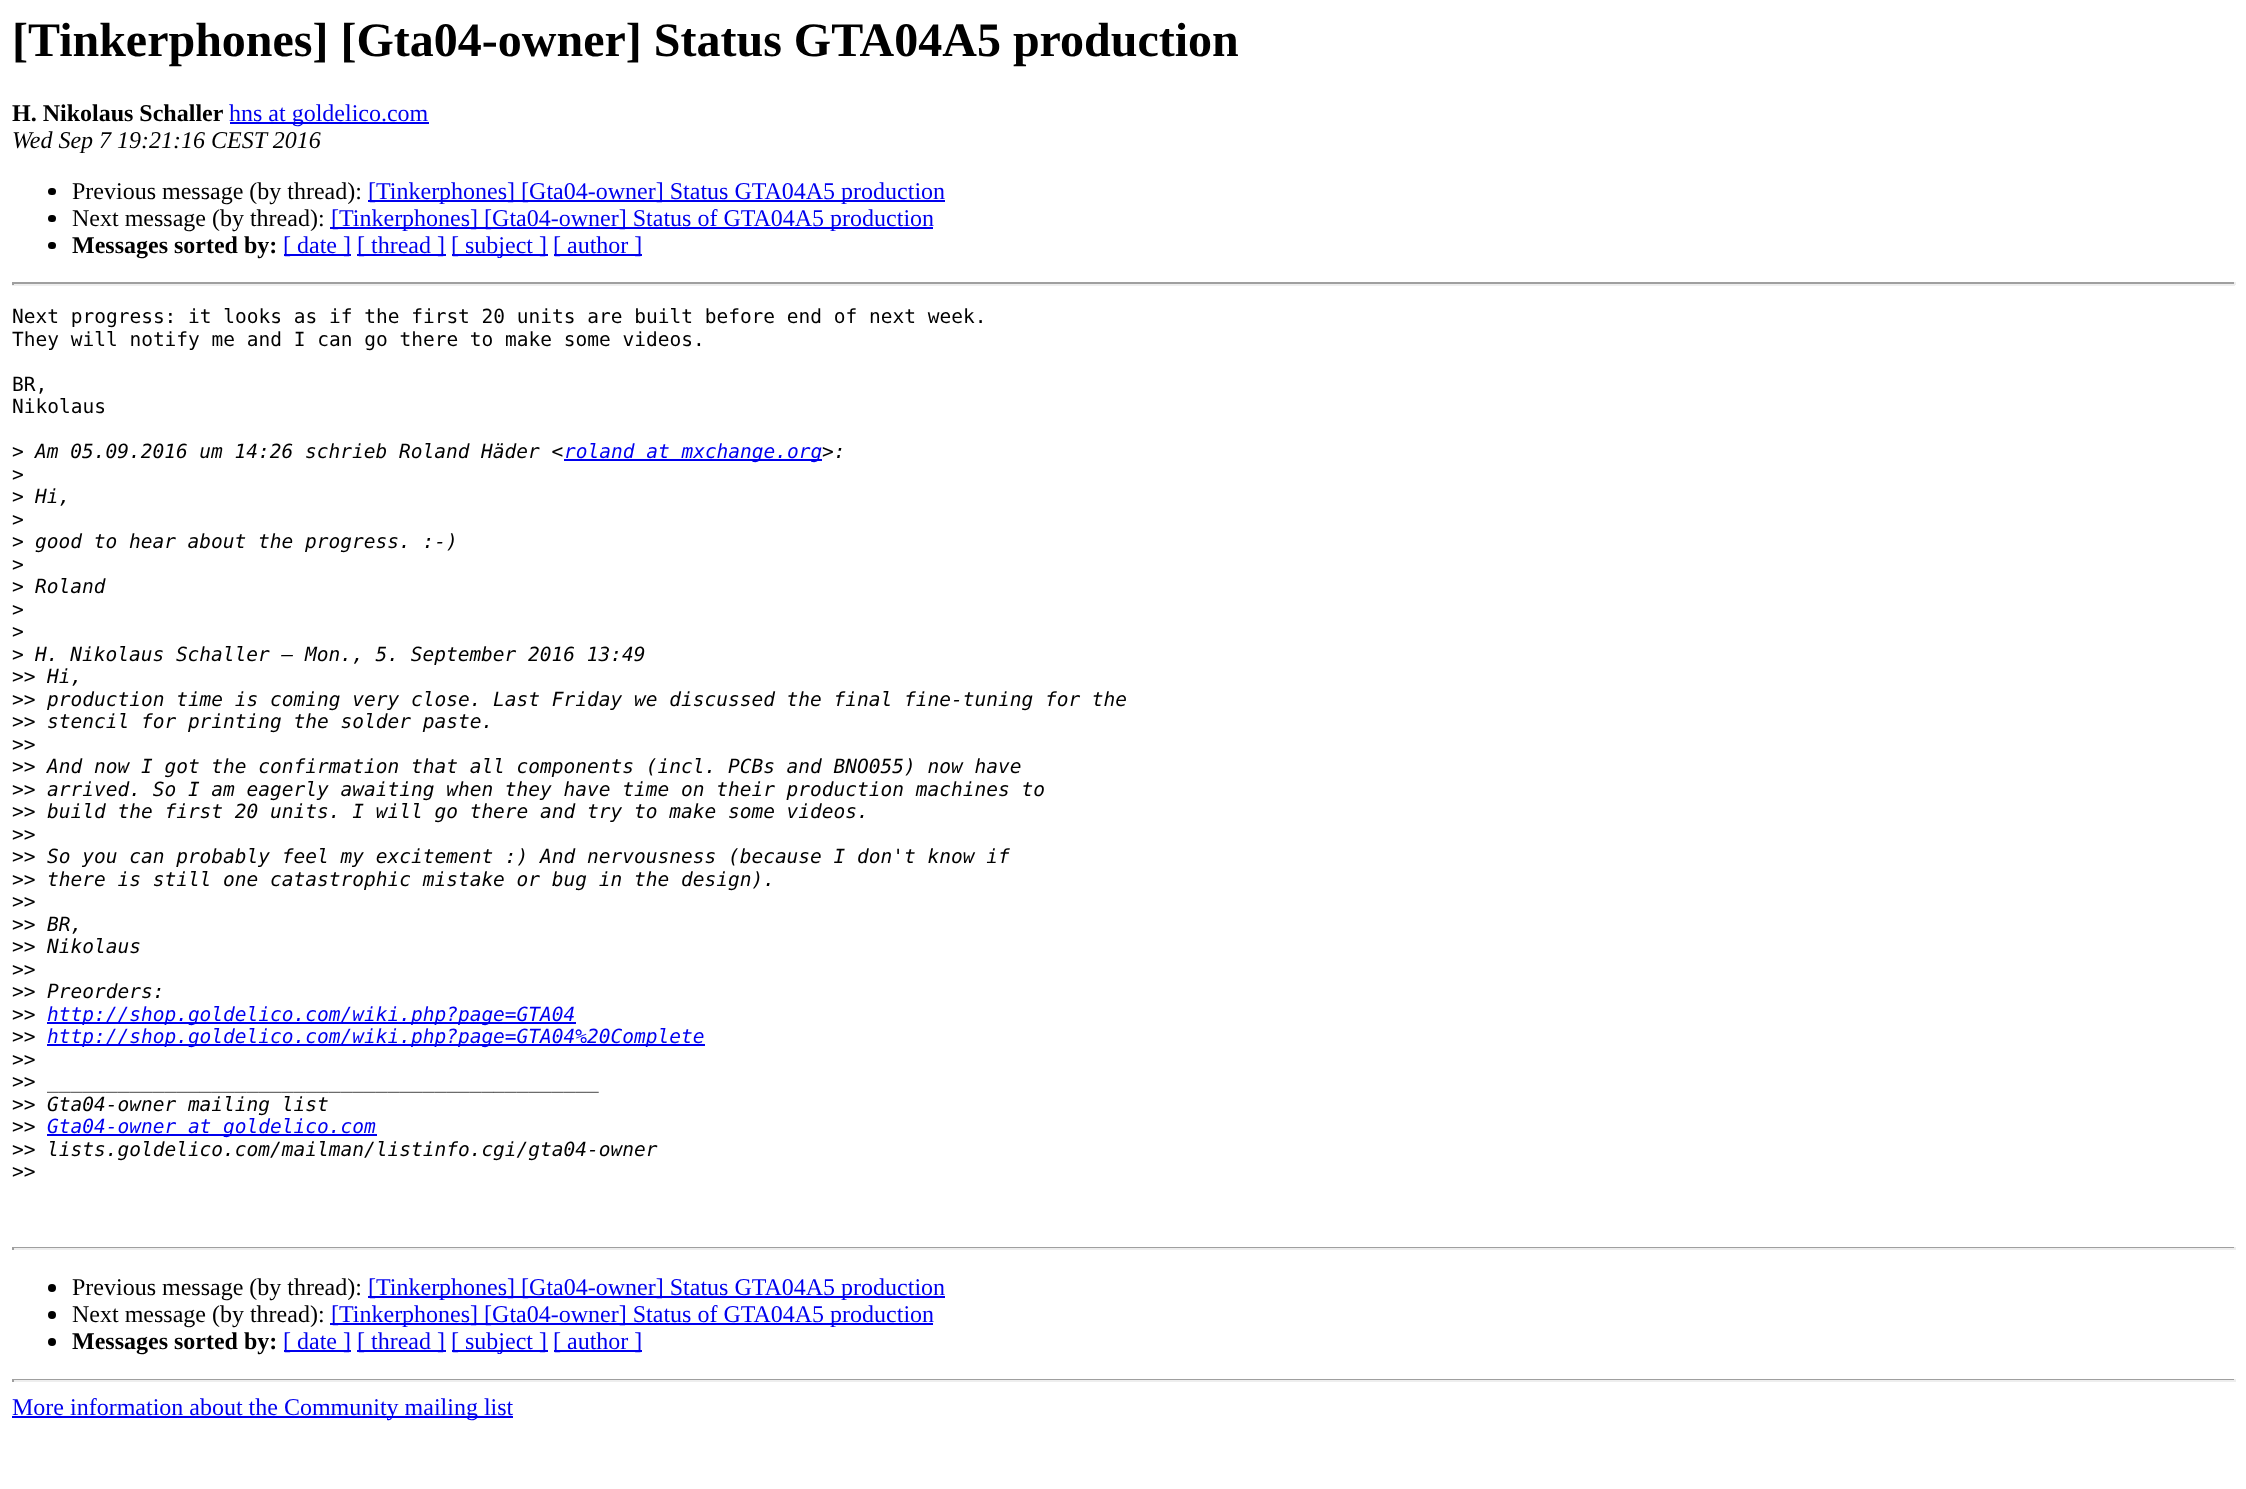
<svg xmlns="http://www.w3.org/2000/svg" width="2246" height="1489" viewBox="0 0 2246 1489">
  <rect width="100%" height="100%" fill="#fff"/>
  <path d="M230 122h199v2H230z" fill="#00e"/>
  <rect x="48" y="188" width="8" height="7" rx="3.5" fill="#000"/>
  <path d="M368 200h577v2H368z" fill="#00e"/>
  <rect x="48" y="215" width="8" height="7" rx="3.5" fill="#000"/>
  <path d="M330 227h603v2H330z" fill="#00e"/>
  <rect x="48" y="242" width="8" height="7" rx="3.5" fill="#000"/>
  <path d="M284 254h67v2H284z" fill="#00e"/>
  <path d="M357 254h89v2H357z" fill="#00e"/>
  <path d="M452 254h96v2H452z" fill="#00e"/>
  <path d="M554 254h88v2H554z" fill="#00e"/>
  <path d="M12 282h2223v2H12z" fill="#9f9f9f"/>
  <path d="M2234 282h2v3H2234z" fill="#eee"/>
  <path d="M12 284h2223v2H12z" fill="#eee"/>
  <path d="M12 282h2v3H12z" fill="#9f9f9f"/>
  <path d="M564 459h258v2H564z" fill="#00e"/>
  <path d="M47 1022h529v2H47z" fill="#00e"/>
  <path d="M47 1044h658v2H47z" fill="#00e"/>
  <path d="M47 1134h330v2H47z" fill="#00e"/>
  <path d="M12 1247h2223v1H12z" fill="#9f9f9f"/>
  <path d="M2234 1247h2v3H2234z" fill="#eee"/>
  <path d="M12 1248h2223v2H12z" fill="#eee"/>
  <path d="M12 1247h2v3H12z" fill="#9f9f9f"/>
  <circle cx="52" cy="1288" r="4" fill="#000"/>
  <path d="M368 1296h577v2H368z" fill="#00e"/>
  <circle cx="52" cy="1315" r="4" fill="#000"/>
  <path d="M330 1323h603v2H330z" fill="#00e"/>
  <circle cx="52" cy="1342" r="4" fill="#000"/>
  <path d="M284 1350h67v2H284z" fill="#00e"/>
  <path d="M357 1350h89v2H357z" fill="#00e"/>
  <path d="M452 1350h96v2H452z" fill="#00e"/>
  <path d="M554 1350h88v2H554z" fill="#00e"/>
  <path d="M12 1379h2223v1H12z" fill="#9f9f9f"/>
  <path d="M2234 1379h2v3H2234z" fill="#eee"/>
  <path d="M12 1380h2223v2H12z" fill="#eee"/>
  <path d="M12 1379h2v3H12z" fill="#9f9f9f"/>
  <path d="M12 1416h501v2H12z" fill="#00e"/>
  <text x="12" y="56" font-family="Liberation Serif" font-size="48" font-weight="bold" fill="#000">[Tinkerphones] [Gta04-owner] Status GTA04A5 production</text>
  <text x="12" y="121" font-family="Liberation Serif" font-size="24" font-weight="bold" fill="#000">H. Nikolaus Schaller</text>
  <text x="229" y="121" font-family="Liberation Serif" font-size="24" fill="#00e">hns at goldelico.com</text>
  <text x="12" y="148" font-family="Liberation Serif" font-size="24" font-style="italic" fill="#000">Wed Sep 7 19:21:16 CEST 2016</text>
  <text x="72" y="199" font-family="Liberation Serif" font-size="24" fill="#000">Previous message (by thread):</text>
  <text x="368" y="199" font-family="Liberation Serif" font-size="24" fill="#00e">[Tinkerphones] [Gta04-owner] Status GTA04A5 production</text>
  <text x="72" y="226" font-family="Liberation Serif" font-size="24" fill="#000">Next message (by thread):</text>
  <text x="331" y="226" font-family="Liberation Serif" font-size="24" fill="#00e">[Tinkerphones] [Gta04-owner] Status of GTA04A5 production</text>
  <text x="72" y="253" font-family="Liberation Serif" font-size="24" font-weight="bold" fill="#000">Messages sorted by:</text>
  <g font-family="Liberation Serif" font-size="24" fill="#00e">
    <text x="283" y="253">[ date ]</text>
    <text x="357" y="253">[ thread ]</text>
    <text x="451" y="253">[ subject ]</text>
    <text x="553" y="253">[ author ]</text>
  </g>
  <g font-family="DejaVu Sans Mono" font-size="19.5" fill="#000">
    <text x="12" y="323">Next progress: it looks as if the first 20 units are built before end of next week.</text>
    <text x="12" y="346">They will notify me and I can go there to make some videos.</text>
    <text x="12" y="391">BR,</text>
    <text x="12" y="413">Nikolaus</text>
    <text x="12" y="458">&gt;</text>
  </g>
  <text x="35" y="458" font-family="DejaVu Sans Mono" font-size="19.5" font-style="italic" fill="#000">Am 05.09.2016 um 14:26 schrieb Roland Häder &lt;</text>
  <text x="564" y="458" font-family="DejaVu Sans Mono" font-size="19.5" font-style="italic" fill="#00e">roland at mxchange.org</text>
  <text x="822" y="458" font-family="DejaVu Sans Mono" font-size="19.5" font-style="italic" fill="#000">&gt;:</text>
  <g font-family="DejaVu Sans Mono" font-size="19.5" fill="#000">
    <text x="12" y="481">&gt;</text>
    <text x="12" y="503">&gt;</text>
  </g>
  <text x="35" y="503" font-family="DejaVu Sans Mono" font-size="19.5" font-style="italic" fill="#000">Hi,</text>
  <g font-family="DejaVu Sans Mono" font-size="19.5" fill="#000">
    <text x="12" y="526">&gt;</text>
    <text x="12" y="548">&gt;</text>
  </g>
  <text x="35" y="548" font-family="DejaVu Sans Mono" font-size="19.5" font-style="italic" fill="#000">good to hear about the progress. :-)</text>
  <g font-family="DejaVu Sans Mono" font-size="19.5" fill="#000">
    <text x="12" y="571">&gt;</text>
    <text x="12" y="593">&gt;</text>
  </g>
  <text x="35" y="593" font-family="DejaVu Sans Mono" font-size="19.5" font-style="italic" fill="#000">Roland</text>
  <g font-family="DejaVu Sans Mono" font-size="19.5" fill="#000">
    <text x="12" y="616">&gt;</text>
    <text x="12" y="638">&gt;</text>
    <text x="12" y="661">&gt;</text>
  </g>
  <text x="35" y="661" font-family="DejaVu Sans Mono" font-size="19.5" font-style="italic" fill="#000">H. Nikolaus Schaller – Mon., 5. September 2016 13:49</text>
  <text x="12" y="683" font-family="DejaVu Sans Mono" font-size="19.5" fill="#000">&gt;&gt;</text>
  <text x="47" y="683" font-family="DejaVu Sans Mono" font-size="19.5" font-style="italic" fill="#000">Hi,</text>
  <text x="12" y="706" font-family="DejaVu Sans Mono" font-size="19.5" fill="#000">&gt;&gt;</text>
  <text x="47" y="706" font-family="DejaVu Sans Mono" font-size="19.5" font-style="italic" fill="#000">production time is coming very close. Last Friday we discussed the final fine-tuning for the</text>
  <text x="12" y="728" font-family="DejaVu Sans Mono" font-size="19.5" fill="#000">&gt;&gt;</text>
  <text x="47" y="728" font-family="DejaVu Sans Mono" font-size="19.5" font-style="italic" fill="#000">stencil for printing the solder paste.</text>
  <g font-family="DejaVu Sans Mono" font-size="19.5" fill="#000">
    <text x="12" y="751">&gt;&gt;</text>
    <text x="12" y="773">&gt;&gt;</text>
  </g>
  <text x="47" y="773" font-family="DejaVu Sans Mono" font-size="19.5" font-style="italic" fill="#000">And now I got the confirmation that all components (incl. PCBs and BNO055) now have</text>
  <text x="12" y="796" font-family="DejaVu Sans Mono" font-size="19.5" fill="#000">&gt;&gt;</text>
  <text x="47" y="796" font-family="DejaVu Sans Mono" font-size="19.5" font-style="italic" fill="#000">arrived. So I am eagerly awaiting when they have time on their production machines to</text>
  <text x="12" y="818" font-family="DejaVu Sans Mono" font-size="19.5" fill="#000">&gt;&gt;</text>
  <text x="47" y="818" font-family="DejaVu Sans Mono" font-size="19.5" font-style="italic" fill="#000">build the first 20 units. I will go there and try to make some videos.</text>
  <g font-family="DejaVu Sans Mono" font-size="19.5" fill="#000">
    <text x="12" y="841">&gt;&gt;</text>
    <text x="12" y="863">&gt;&gt;</text>
  </g>
  <text x="47" y="863" font-family="DejaVu Sans Mono" font-size="19.5" font-style="italic" fill="#000">So you can probably feel my excitement :) And nervousness (because I don't know if</text>
  <text x="12" y="886" font-family="DejaVu Sans Mono" font-size="19.5" fill="#000">&gt;&gt;</text>
  <text x="47" y="886" font-family="DejaVu Sans Mono" font-size="19.5" font-style="italic" fill="#000">there is still one catastrophic mistake or bug in the design).</text>
  <g font-family="DejaVu Sans Mono" font-size="19.5" fill="#000">
    <text x="12" y="908">&gt;&gt;</text>
    <text x="12" y="931">&gt;&gt;</text>
  </g>
  <text x="47" y="931" font-family="DejaVu Sans Mono" font-size="19.5" font-style="italic" fill="#000">BR,</text>
  <text x="12" y="953" font-family="DejaVu Sans Mono" font-size="19.5" fill="#000">&gt;&gt;</text>
  <text x="47" y="953" font-family="DejaVu Sans Mono" font-size="19.5" font-style="italic" fill="#000">Nikolaus</text>
  <g font-family="DejaVu Sans Mono" font-size="19.5" fill="#000">
    <text x="12" y="976">&gt;&gt;</text>
    <text x="12" y="998">&gt;&gt;</text>
  </g>
  <text x="47" y="998" font-family="DejaVu Sans Mono" font-size="19.5" font-style="italic" fill="#000">Preorders:</text>
  <text x="12" y="1021" font-family="DejaVu Sans Mono" font-size="19.5" fill="#000">&gt;&gt;</text>
  <text x="47" y="1021" font-family="DejaVu Sans Mono" font-size="19.5" font-style="italic" fill="#00e">http://shop.goldelico.com/wiki.php?page=GTA04</text>
  <text x="12" y="1043" font-family="DejaVu Sans Mono" font-size="19.5" fill="#000">&gt;&gt;</text>
  <text x="47" y="1043" font-family="DejaVu Sans Mono" font-size="19.5" font-style="italic" fill="#00e">http://shop.goldelico.com/wiki.php?page=GTA04%20Complete</text>
  <g font-family="DejaVu Sans Mono" font-size="19.5" fill="#000">
    <text x="12" y="1066">&gt;&gt;</text>
    <text x="12" y="1088">&gt;&gt;</text>
  </g>
  <text x="47" y="1088" font-family="DejaVu Sans Mono" font-size="19.5" font-style="italic" fill="#000">_______________________________________________</text>
  <text x="12" y="1111" font-family="DejaVu Sans Mono" font-size="19.5" fill="#000">&gt;&gt;</text>
  <text x="47" y="1111" font-family="DejaVu Sans Mono" font-size="19.5" font-style="italic" fill="#000">Gta04-owner mailing list</text>
  <text x="12" y="1133" font-family="DejaVu Sans Mono" font-size="19.5" fill="#000">&gt;&gt;</text>
  <text x="47" y="1133" font-family="DejaVu Sans Mono" font-size="19.5" font-style="italic" fill="#00e">Gta04-owner at goldelico.com</text>
  <text x="12" y="1156" font-family="DejaVu Sans Mono" font-size="19.5" fill="#000">&gt;&gt;</text>
  <text x="47" y="1156" font-family="DejaVu Sans Mono" font-size="19.5" font-style="italic" fill="#000">lists.goldelico.com/mailman/listinfo.cgi/gta04-owner</text>
  <text x="12" y="1178" font-family="DejaVu Sans Mono" font-size="19.5" fill="#000">&gt;&gt;</text>
  <text x="72" y="1295" font-family="Liberation Serif" font-size="24" fill="#000">Previous message (by thread):</text>
  <text x="368" y="1295" font-family="Liberation Serif" font-size="24" fill="#00e">[Tinkerphones] [Gta04-owner] Status GTA04A5 production</text>
  <text x="72" y="1322" font-family="Liberation Serif" font-size="24" fill="#000">Next message (by thread):</text>
  <text x="331" y="1322" font-family="Liberation Serif" font-size="24" fill="#00e">[Tinkerphones] [Gta04-owner] Status of GTA04A5 production</text>
  <text x="72" y="1349" font-family="Liberation Serif" font-size="24" font-weight="bold" fill="#000">Messages sorted by:</text>
  <g font-family="Liberation Serif" font-size="24" fill="#00e">
    <text x="283" y="1349">[ date ]</text>
    <text x="357" y="1349">[ thread ]</text>
    <text x="451" y="1349">[ subject ]</text>
    <text x="553" y="1349">[ author ]</text>
    <text x="12" y="1415">More information about the Community mailing list</text>
  </g>
</svg>
